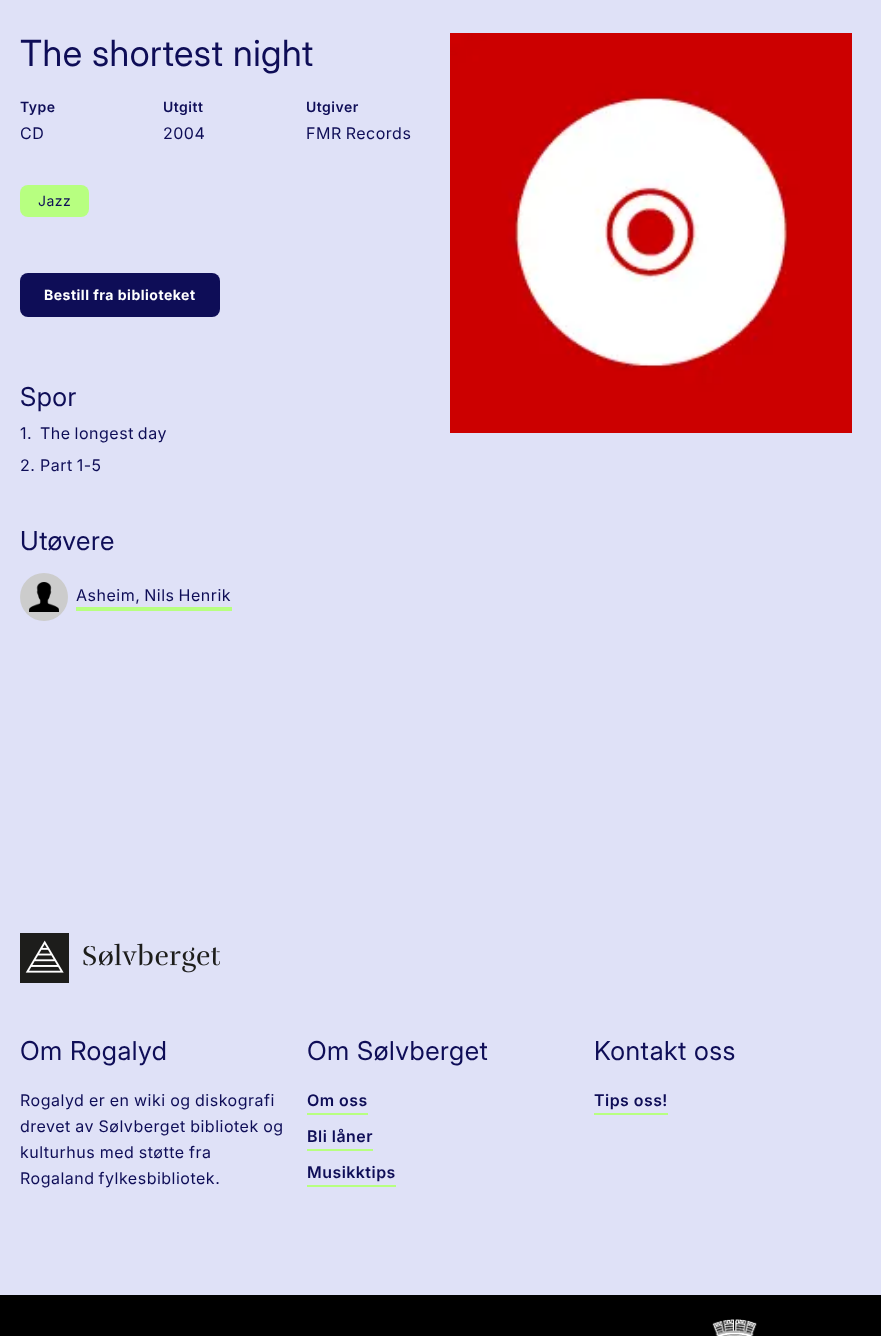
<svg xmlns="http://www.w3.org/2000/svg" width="881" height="1336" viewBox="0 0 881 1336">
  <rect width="100%" height="100%" fill="#dfe1f7"/>
  <rect x="20" y="185" width="69" height="32" rx="8" fill="#b7ff80"/>
  <rect x="20" y="273" width="200" height="44" rx="8" fill="#0e0d57"/>
  <circle cx="44" cy="597" r="24" fill="#ccc"/>
  <image x="29" y="582" width="30" height="30" href="img/1.png"/>
  <path d="M76 607h156v4H76z" fill="#b7ff80"/>
  <image x="450" y="33" width="402" height="400" href="img/2.png"/>
  <image x="20" y="933" width="200" height="50" href="img/3.png"/>
  <path d="M307 1113h61v2H307z" fill="#b7ff80"/>
  <path d="M307 1149h66v2H307z" fill="#b7ff80"/>
  <path d="M307 1185h89v2H307z" fill="#b7ff80"/>
  <path d="M594 1113h74v2H594z" fill="#b7ff80"/>
  <path d="M0 1295h881v41H0z" fill="#000"/>
  <image x="712" y="1319" width="45" height="17" href="img/4.png"/>
  <text x="20" y="66" font-family="Inter" font-size="36" letter-spacing="0.5" fill="#0e0d57">The shortest night</text>
  <text x="20" y="112" font-family="Inter" font-size="14" font-weight="600" letter-spacing="0.5" fill="#0e0d57">Type</text>
  <text x="20" y="139" font-family="'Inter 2'" font-size="16" letter-spacing="0.5" fill="#0e0d57">CD</text>
  <text x="163" y="112" font-family="Inter" font-size="14" font-weight="600" letter-spacing="0.5" fill="#0e0d57">Utgitt</text>
  <text x="163" y="139" font-family="'Inter 2'" font-size="16" letter-spacing="0.5" fill="#0e0d57">2004</text>
  <text x="306" y="112" font-family="Inter" font-size="14" font-weight="600" letter-spacing="0.5" fill="#0e0d57">Utgiver</text>
  <text x="306" y="139" word-spacing="-1" font-family="'Inter 2'" font-size="16" letter-spacing="0.5" fill="#0e0d57">FMR Records</text>
  <text x="38" y="206" font-family="'Inter 2'" font-size="14" letter-spacing="0.5" fill="#0e0d57">Jazz</text>
  <text x="44" y="300" font-family="Inter" font-size="14" font-weight="bold" letter-spacing="0.5" fill="#fff">Bestill fra biblioteket</text>
  <text x="20" y="406" font-family="'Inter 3'" font-size="26" letter-spacing="0.5" fill="#0e0d57">Spor</text>
  <g font-family="'Inter 2'" font-size="16" letter-spacing="0.5" fill="#0e0d57">
    <text x="20" y="439">1.</text>
    <text x="40" y="439" word-spacing="-1">The longest day</text>
    <text x="20" y="471">2.</text>
    <text x="40" y="471" word-spacing="-1">Part 1-5</text>
  </g>
  <text x="20" y="550" font-family="'Inter 3'" font-size="26" letter-spacing="0.5" fill="#0e0d57">Utøvere</text>
  <text x="76" y="601" word-spacing="-1" font-family="'Inter 2'" font-size="16" letter-spacing="0.5" fill="#0e0d57">Asheim, Nils Henrik</text>
  <text x="20" y="1060" font-family="'Inter 3'" font-size="26" letter-spacing="0.5" fill="#0e0d57">Om Rogalyd</text>
  <g font-family="'Inter 2'" font-size="16" letter-spacing="0.5" fill="#0e0d57">
    <text x="20" y="1106" word-spacing="-0.5">Rogalyd er en wiki og diskografi</text>
    <text x="20" y="1132" word-spacing="-0.5">drevet av Sølvberget bibliotek og</text>
    <text x="20" y="1158" word-spacing="-0.5">kulturhus med støtte fra</text>
    <text x="20" y="1184" word-spacing="-1">Rogaland fylkesbibliotek.</text>
  </g>
  <text x="307" y="1060" font-family="'Inter 3'" font-size="26" letter-spacing="0.5" fill="#0e0d57">Om Sølvberget</text>
  <g font-family="'Inter 2'" font-size="16" font-weight="600" letter-spacing="0.5" fill="#0e0d57">
    <text x="307" y="1106">Om oss</text>
    <text x="307" y="1142">Bli låner</text>
    <text x="307" y="1178">Musikktips</text>
  </g>
  <text x="594" y="1060" font-family="'Inter 3'" font-size="26" letter-spacing="0.5" fill="#0e0d57">Kontakt oss</text>
  <text x="594" y="1106" font-family="'Inter 2'" font-size="16" font-weight="600" letter-spacing="0.5" fill="#0e0d57">Tips oss!</text>
</svg>
